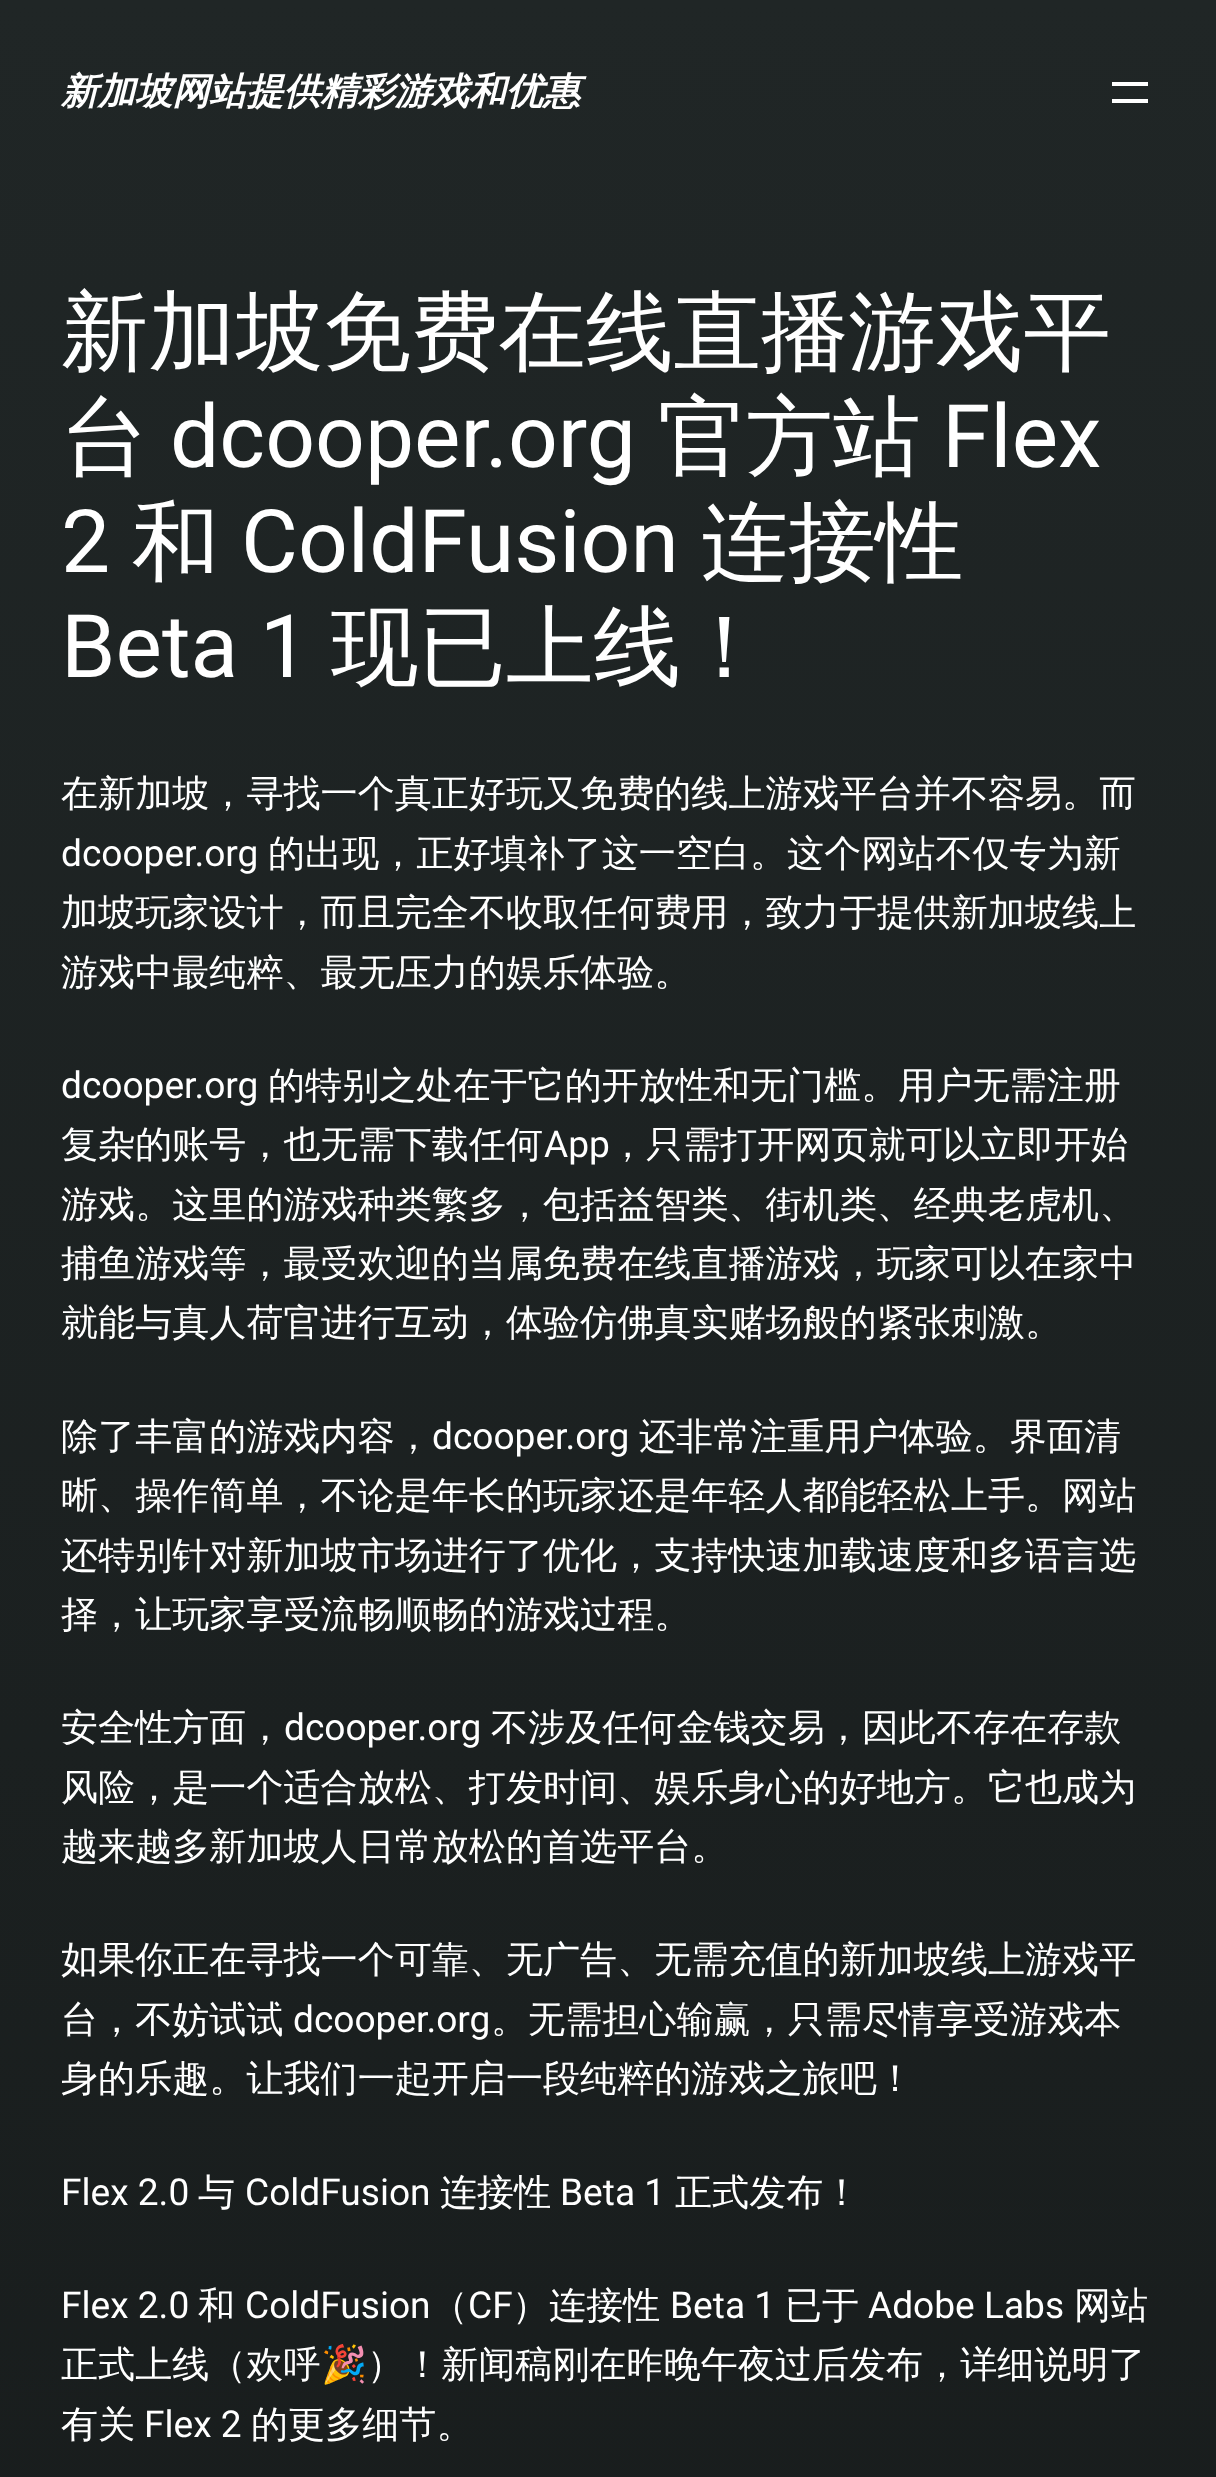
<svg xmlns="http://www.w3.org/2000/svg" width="1216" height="2477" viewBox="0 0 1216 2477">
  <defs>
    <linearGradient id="g1" gradientUnits="userSpaceOnUse" x1="609" y1="0" x2="609" y2="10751"><stop offset="0" stop-color="#202626"/><stop offset="1" stop-color="#010101"/></linearGradient>
  </defs>
  <rect width="100%" height="100%" fill="#fff"/>
  <path d="M0 0h1216v2477H0z" fill="url(#g1)"/>
  <path d="M1112 82h36v4H1112z" fill="#fff"/>
  <path d="M1112 99h36v4H1112z" fill="#fff"/>
  <text x="61" y="104" font-family="WenQuanYi Zen Hei" font-size="37.1" font-weight="bold" font-style="italic" fill="#fff">新加坡网站提供精彩游戏和优惠</text>
  <g font-family="WenQuanYi Zen Hei" font-size="87.5" font-weight="500" fill="#fff">
    <text x="61" y="362">新加坡免费在线直播游戏平</text>
    <text x="61" y="467">台</text>
  </g>
  <text x="170" y="467" font-family="Roboto" font-size="87.5" fill="#fff">dcooper.org</text>
  <text x="658" y="467" font-family="WenQuanYi Zen Hei" font-size="87.5" font-weight="500" fill="#fff">官方站</text>
  <g font-family="Roboto" font-size="87.5" fill="#fff">
    <text x="942" y="467">Flex</text>
    <text x="61" y="572">2</text>
  </g>
  <text x="132" y="572" font-family="WenQuanYi Zen Hei" font-size="87.5" font-weight="500" fill="#fff">和</text>
  <text x="241" y="572" font-family="Roboto" font-size="87.5" fill="#fff">ColdFusion</text>
  <text x="701" y="572" font-family="WenQuanYi Zen Hei" font-size="87.5" font-weight="500" fill="#fff">连接性</text>
  <text x="61" y="677" font-family="Roboto" font-size="87.5" fill="#fff">Beta 1</text>
  <text x="331" y="677" font-family="WenQuanYi Zen Hei" font-size="87.5" font-weight="500" fill="#fff">现已上线！</text>
  <text x="61" y="806" font-family="WenQuanYi Zen Hei" font-size="37.1" font-weight="500" fill="#fff">在新加坡，寻找一个真正好玩又免费的线上游戏平台并不容易。而</text>
  <text x="61" y="866" font-family="Roboto" font-size="37.1" fill="#fff">dcooper.org</text>
  <g font-family="WenQuanYi Zen Hei" font-size="37.1" font-weight="500" fill="#fff">
    <text x="268" y="866">的出现，正好填补了这一空白。这个网站不仅专为新</text>
    <text x="61" y="925">加坡玩家设计，而且完全不收取任何费用，致力于提供新加坡线上</text>
    <text x="61" y="985">游戏中最纯粹、最无压力的娱乐体验。</text>
  </g>
  <text x="61" y="1098" font-family="Roboto" font-size="37.1" fill="#fff">dcooper.org</text>
  <g font-family="WenQuanYi Zen Hei" font-size="37.1" font-weight="500" fill="#fff">
    <text x="268" y="1098">的特别之处在于它的开放性和无门槛。用户无需注册</text>
    <text x="61" y="1157">复杂的账号，也无需下载任何</text>
  </g>
  <text x="544" y="1157" font-family="Roboto" font-size="37.1" fill="#fff">App</text>
  <g font-family="WenQuanYi Zen Hei" font-size="37.1" font-weight="500" fill="#fff">
    <text x="609" y="1157">，只需打开网页就可以立即开始</text>
    <text x="61" y="1217">游戏。这里的游戏种类繁多，包括益智类、街机类、经典老虎机、</text>
    <text x="61" y="1276">捕鱼游戏等，最受欢迎的当属免费在线直播游戏，玩家可以在家中</text>
    <text x="61" y="1335">就能与真人荷官进行互动，体验仿佛真实赌场般的紧张刺激。</text>
    <text x="61" y="1449">除了丰富的游戏内容，</text>
  </g>
  <text x="432" y="1449" font-family="Roboto" font-size="37.1" fill="#fff">dcooper.org</text>
  <g font-family="WenQuanYi Zen Hei" font-size="37.1" font-weight="500" fill="#fff">
    <text x="639" y="1449">还非常注重用户体验。界面清</text>
    <text x="61" y="1508">晰、操作简单，不论是年长的玩家还是年轻人都能轻松上手。网站</text>
    <text x="61" y="1568">还特别针对新加坡市场进行了优化，支持快速加载速度和多语言选</text>
    <text x="61" y="1627">择，让玩家享受流畅顺畅的游戏过程。</text>
    <text x="61" y="1740">安全性方面，</text>
  </g>
  <text x="284" y="1740" font-family="Roboto" font-size="37.1" fill="#fff">dcooper.org</text>
  <g font-family="WenQuanYi Zen Hei" font-size="37.1" font-weight="500" fill="#fff">
    <text x="491" y="1740">不涉及任何金钱交易，因此不存在存款</text>
    <text x="61" y="1800">风险，是一个适合放松、打发时间、娱乐身心的好地方。它也成为</text>
    <text x="61" y="1859">越来越多新加坡人日常放松的首选平台。</text>
    <text x="61" y="1972">如果你正在寻找一个可靠、无广告、无需充值的新加坡线上游戏平</text>
    <text x="61" y="2032">台，不妨试试</text>
  </g>
  <text x="293" y="2032" font-family="Roboto" font-size="37.1" fill="#fff">dcooper.org</text>
  <g font-family="WenQuanYi Zen Hei" font-size="37.1" font-weight="500" fill="#fff">
    <text x="491" y="2032">。无需担心输赢，只需尽情享受游戏本</text>
    <text x="61" y="2091">身的乐趣。让我们一起开启一段纯粹的游戏之旅吧！</text>
  </g>
  <text x="61" y="2205" font-family="Roboto" font-size="37.1" fill="#fff">Flex 2.0</text>
  <text x="198" y="2205" font-family="WenQuanYi Zen Hei" font-size="37.1" font-weight="500" fill="#fff">与</text>
  <text x="245" y="2205" font-family="Roboto" font-size="37.1" fill="#fff">ColdFusion</text>
  <text x="440" y="2205" font-family="WenQuanYi Zen Hei" font-size="37.1" font-weight="500" fill="#fff">连接性</text>
  <text x="560" y="2205" font-family="Roboto" font-size="37.1" fill="#fff">Beta 1</text>
  <text x="675" y="2205" font-family="WenQuanYi Zen Hei" font-size="37.1" font-weight="500" fill="#fff">正式发布！</text>
  <text x="61" y="2318" font-family="Roboto" font-size="37.1" fill="#fff">Flex 2.0</text>
  <text x="198" y="2318" font-family="WenQuanYi Zen Hei" font-size="37.1" font-weight="500" fill="#fff">和</text>
  <text x="245" y="2318" font-family="Roboto" font-size="37.1" fill="#fff">ColdFusion</text>
  <text x="431" y="2318" font-family="WenQuanYi Zen Hei" font-size="37.1" font-weight="500" fill="#fff">（</text>
  <text x="468" y="2318" font-family="Roboto" font-size="37.1" fill="#fff">CF</text>
  <text x="512" y="2318" font-family="WenQuanYi Zen Hei" font-size="37.1" font-weight="500" fill="#fff">）连接性</text>
  <text x="670" y="2318" font-family="Roboto" font-size="37.1" fill="#fff">Beta 1</text>
  <text x="785" y="2318" font-family="WenQuanYi Zen Hei" font-size="37.1" font-weight="500" fill="#fff">已于</text>
  <text x="868" y="2318" font-family="Roboto" font-size="37.1" fill="#fff">Adobe Labs</text>
  <g font-family="WenQuanYi Zen Hei" font-size="37.1" font-weight="500" fill="#fff">
    <text x="1074" y="2318">网站</text>
    <text x="61" y="2377">正式上线（欢呼</text>
  </g>
  <text x="321" y="2377" font-family="Noto Color Emoji" font-size="37.1" fill="#fff">🎉</text>
  <g font-family="WenQuanYi Zen Hei" font-size="37.1" font-weight="500" fill="#fff">
    <text x="367" y="2377">）！新闻稿刚在昨晚午夜过后发布，详细说明了</text>
    <text x="61" y="2437">有关</text>
  </g>
  <text x="144" y="2437" font-family="Roboto" font-size="37.1" fill="#fff">Flex 2</text>
  <text x="251" y="2437" font-family="WenQuanYi Zen Hei" font-size="37.1" font-weight="500" fill="#fff">的更多细节。</text>
</svg>
